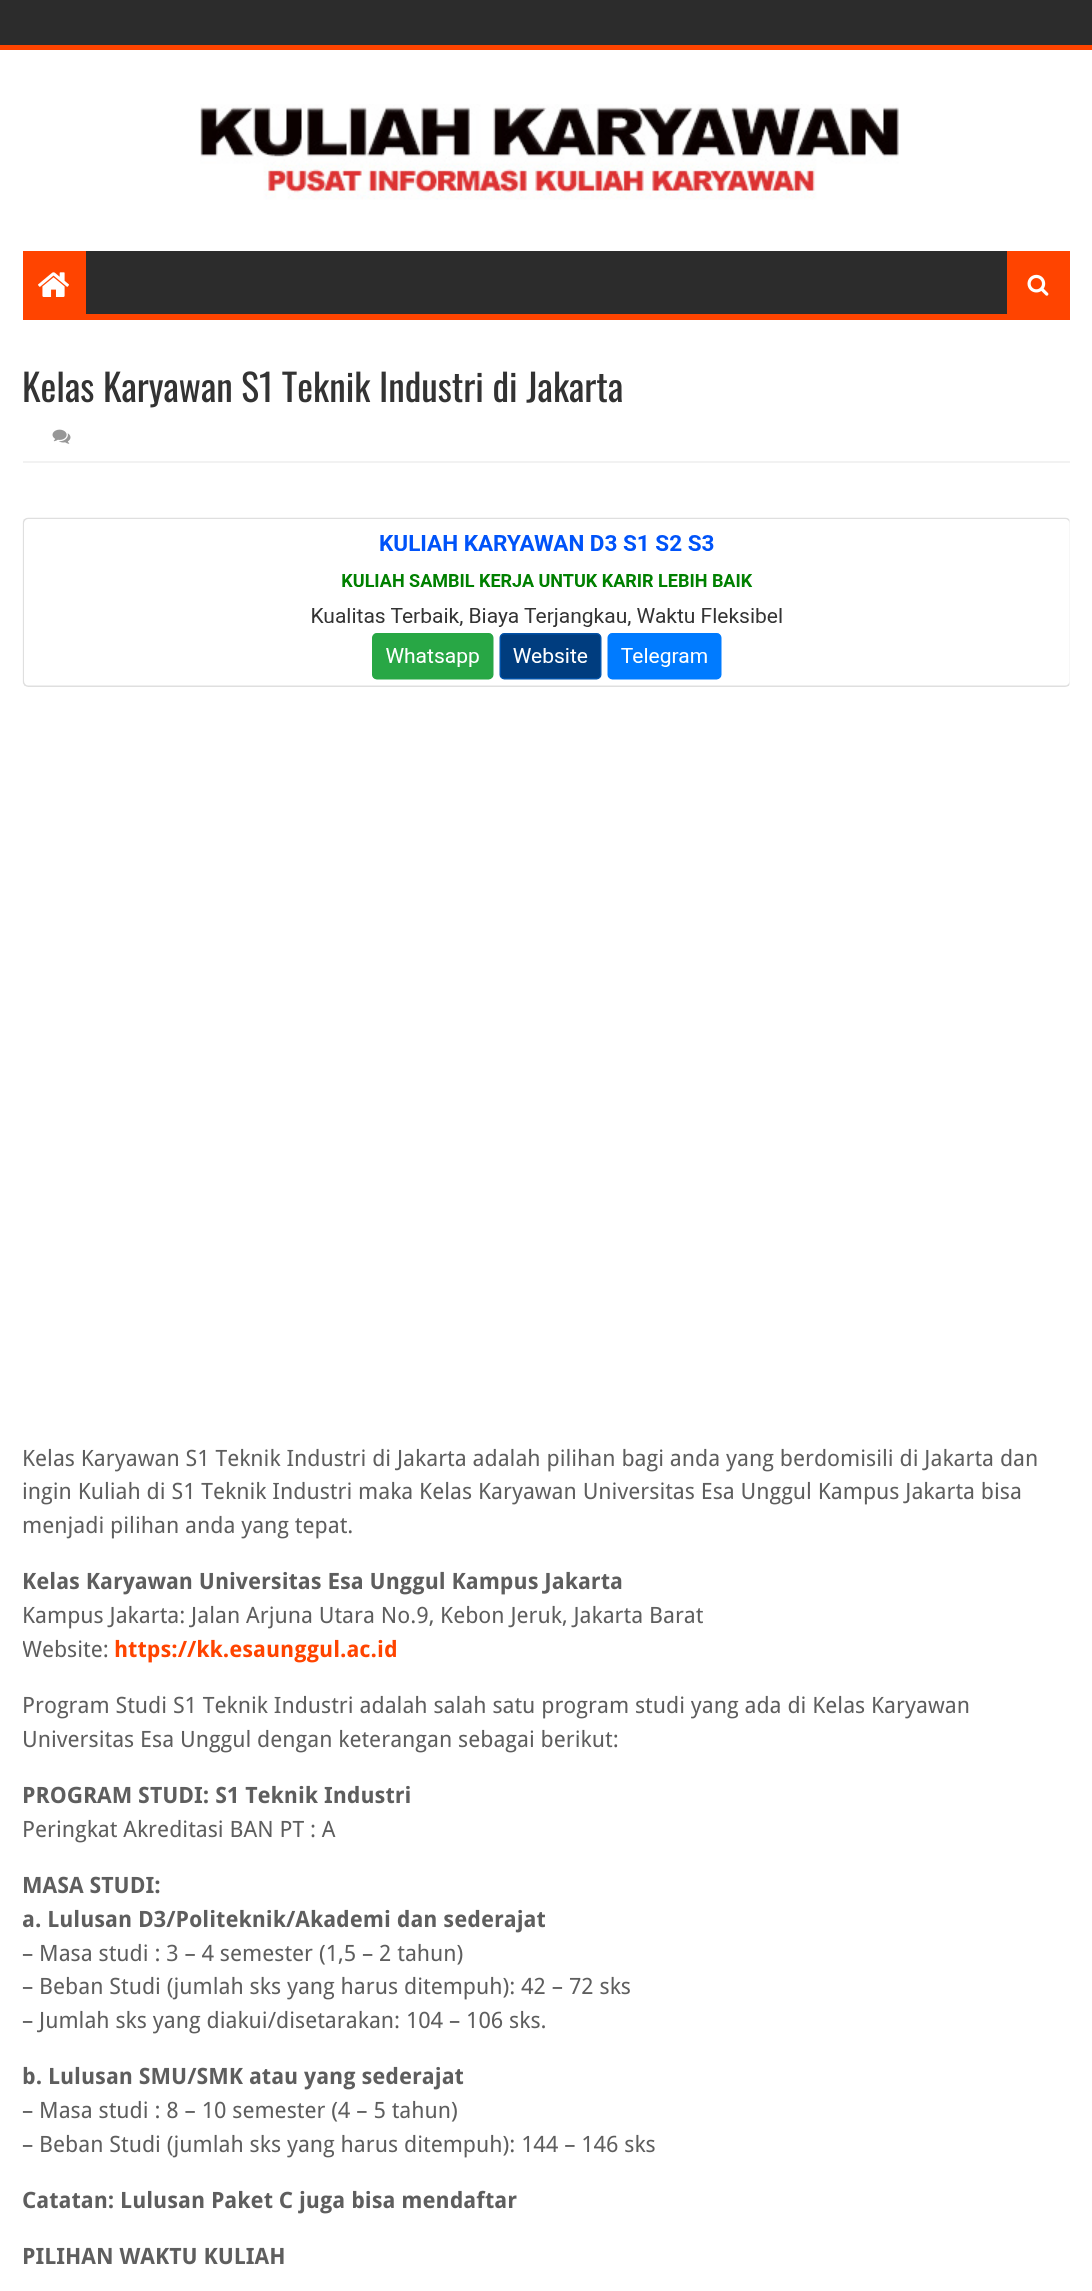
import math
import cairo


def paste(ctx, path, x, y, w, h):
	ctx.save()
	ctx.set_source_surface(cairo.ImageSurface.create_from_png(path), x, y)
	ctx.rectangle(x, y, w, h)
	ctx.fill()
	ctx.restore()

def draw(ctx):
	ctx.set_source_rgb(1, 1, 1)
	ctx.paint()
	ctx.set_source_rgb(0.173, 0.173, 0.173)
	ctx.rectangle(0, 0, 1092, 45)
	ctx.fill()
	ctx.set_source_rgb(1, 0.267, 0)
	ctx.rectangle(0, 45, 1092, 5)
	ctx.fill()
	paste(ctx, 'media/1.png', 200, 104, 699, 96)
	ctx.set_source_rgb(0.173, 0.173, 0.173)
	ctx.rectangle(86, 251, 921, 63)
	ctx.fill()
	ctx.set_source_rgb(1, 0.267, 0)
	ctx.rectangle(23, 314, 1047, 6)
	ctx.rectangle(23, 251, 63, 63)
	ctx.fill()
	paste(ctx, 'media/2.png', 38, 272, 31, 25)
	ctx.rectangle(1007, 251, 63, 63)
	ctx.fill()
	paste(ctx, 'media/3.png', 1027, 274, 22, 22)
	ctx.select_font_face('Oswald')
	ctx.set_font_size(37.5)
	ctx.set_source_rgb(0.2, 0.2, 0.2)
	ctx.move_to(22, 402)
	ctx.show_text('Kelas Karyawan S1 Teknik Industri di Jakarta')
	ctx.set_source_rgb(0.949, 0.949, 0.949)
	ctx.rectangle(23, 461, 1047, 2)
	ctx.fill()
	paste(ctx, 'media/4.png', 52, 429, 19, 15)
	paste(ctx, 'media/5.png', 22, 517, 1048, 170)
	ctx.select_font_face('Droid Sans')
	ctx.set_font_size(22.5)
	ctx.set_source_rgb(0.369, 0.369, 0.369)
	for x, y, s in [
		(22, 1466, 'Kelas Karyawan S1 Teknik Industri di Jakarta adalah pilihan bagi anda yang berdomisili di Jakarta dan'),
		(22, 1499, 'ingin Kuliah di S1 Teknik Industri maka Kelas Karyawan Universitas Esa Unggul Kampus Jakarta bisa'),
		(22, 1533, 'menjadi pilihan anda yang tepat.'),
	]:
		ctx.move_to(x, y)
		ctx.show_text(s)
	ctx.select_font_face('Droid Sans', cairo.FONT_SLANT_NORMAL, cairo.FONT_WEIGHT_BOLD)
	ctx.move_to(22, 1589)
	ctx.show_text('Kelas Karyawan Universitas Esa Unggul Kampus Jakarta')
	ctx.select_font_face('Droid Sans')
	ctx.move_to(22, 1623)
	ctx.show_text('Kampus Jakarta: Jalan Arjuna Utara No.9, Kebon Jeruk, Jakarta Barat')
	ctx.save()
	ctx.rectangle(23, 485, 1047, 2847)
	ctx.clip()
	ctx.move_to(22, 1657)
	ctx.show_text('Website:')
	ctx.restore()
	ctx.select_font_face('Droid Sans', cairo.FONT_SLANT_NORMAL, cairo.FONT_WEIGHT_BOLD)
	ctx.set_source_rgb(1, 0.267, 0)
	ctx.move_to(114, 1657)
	ctx.show_text('https://kk.esaunggul.ac.id')
	ctx.select_font_face('Droid Sans')
	ctx.set_source_rgb(0.369, 0.369, 0.369)
	ctx.move_to(22, 1713)
	ctx.show_text('Program Studi S1 Teknik Industri adalah salah satu program studi yang ada di Kelas Karyawan')
	ctx.move_to(22, 1747)
	ctx.show_text('Universitas Esa Unggul dengan keterangan sebagai berikut:')
	ctx.select_font_face('Droid Sans', cairo.FONT_SLANT_NORMAL, cairo.FONT_WEIGHT_BOLD)
	ctx.move_to(22, 1803)
	ctx.show_text('PROGRAM STUDI: S1 Teknik Industri')
	ctx.select_font_face('Droid Sans')
	ctx.move_to(22, 1837)
	ctx.show_text('Peringkat Akreditasi BAN PT : A')
	ctx.select_font_face('Droid Sans', cairo.FONT_SLANT_NORMAL, cairo.FONT_WEIGHT_BOLD)
	ctx.move_to(22, 1893)
	ctx.show_text('MASA STUDI:')
	ctx.save()
	ctx.rectangle(23, 485, 1047, 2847)
	ctx.clip()
	ctx.move_to(22, 1927)
	ctx.show_text('a. Lulusan D3/Politeknik/Akademi dan sederajat')
	ctx.restore()
	ctx.select_font_face('Droid Sans')
	for x, y, s in [
		(22, 1961, '– Masa studi : 3 – 4 semester (1,5 – 2 tahun)'),
		(22, 1994, '– Beban Studi (jumlah sks yang harus ditempuh): 42 – 72 sks'),
		(22, 2028, '– Jumlah sks yang diakui/disetarakan: 104 – 106 sks.'),
	]:
		ctx.move_to(x, y)
		ctx.show_text(s)
	ctx.select_font_face('Droid Sans', cairo.FONT_SLANT_NORMAL, cairo.FONT_WEIGHT_BOLD)
	ctx.move_to(22, 2084)
	ctx.show_text('b. Lulusan SMU/SMK atau yang sederajat')
	ctx.select_font_face('Droid Sans')
	ctx.move_to(22, 2118)
	ctx.show_text('– Masa studi : 8 – 10 semester (4 – 5 tahun)')
	ctx.move_to(22, 2152)
	ctx.show_text('– Beban Studi (jumlah sks yang harus ditempuh): 144 – 146 sks')
	ctx.select_font_face('Droid Sans', cairo.FONT_SLANT_NORMAL, cairo.FONT_WEIGHT_BOLD)
	ctx.move_to(22, 2208)
	ctx.show_text('Catatan: Lulusan Paket C juga bisa mendaftar')
	ctx.move_to(22, 2264)
	ctx.show_text('PILIHAN WAKTU KULIAH')


surface = cairo.ImageSurface(cairo.FORMAT_RGB24, 1092, 2291)
ctx = cairo.Context(surface)
options = cairo.FontOptions()
options.set_hint_metrics(cairo.HINT_METRICS_OFF)
options.set_hint_style(cairo.HINT_STYLE_NONE)
ctx.set_font_options(options)
ctx.set_miter_limit(4)
draw(ctx)
surface.write_to_png('image.png')
